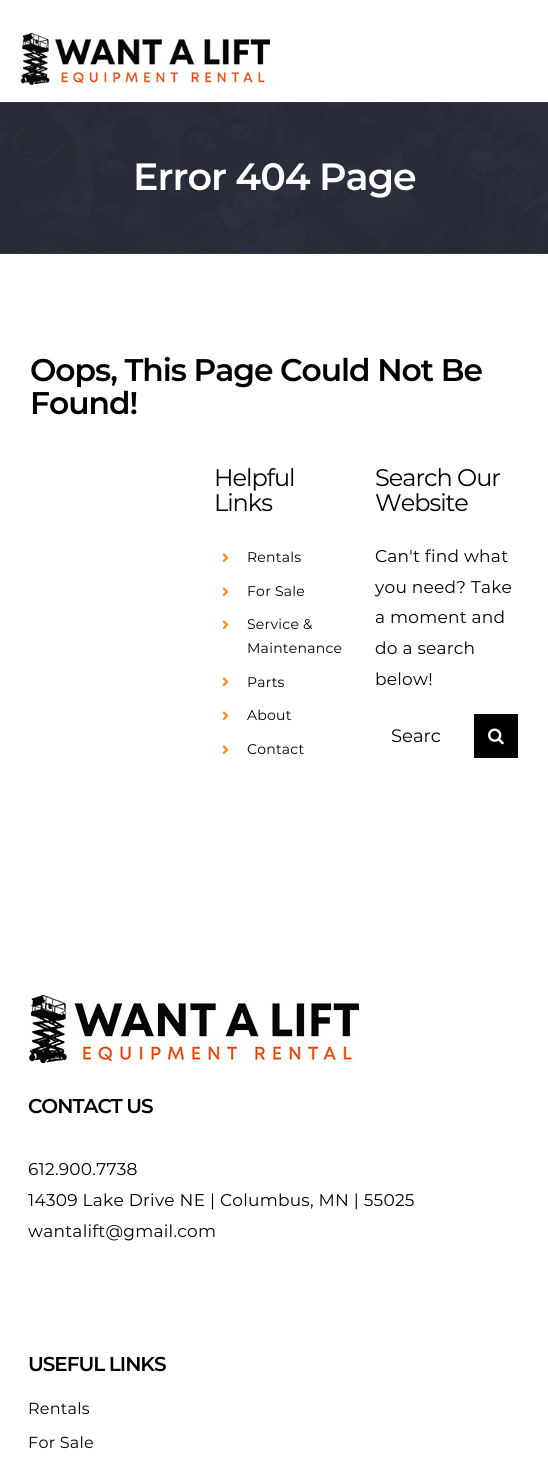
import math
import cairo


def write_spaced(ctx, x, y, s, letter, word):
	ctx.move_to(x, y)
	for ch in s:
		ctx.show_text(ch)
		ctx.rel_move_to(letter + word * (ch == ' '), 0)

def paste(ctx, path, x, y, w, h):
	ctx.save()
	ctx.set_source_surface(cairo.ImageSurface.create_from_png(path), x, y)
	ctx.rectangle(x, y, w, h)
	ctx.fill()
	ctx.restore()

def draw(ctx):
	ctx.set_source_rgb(1, 1, 1)
	ctx.paint()
	paste(ctx, 'media/1.png', 20, 32, 250, 54)
	paste(ctx, 'media/2.png', 0, 103, 548, 150)
	ctx.set_source_rgb(0.2, 0.212, 0.271)
	ctx.rectangle(0, 102, 548, 1)
	ctx.fill()
	ctx.rectangle(0, 253, 548, 1)
	ctx.fill()
	ctx.select_font_face('Montserrat SemiBold')
	ctx.set_font_size(38)
	ctx.set_source_rgb(1, 1, 1)
	write_spaced(ctx, 133, 190, 'Error 404 Page', -1, 0)
	ctx.set_font_size(31.3)
	ctx.set_source_rgb(0, 0, 0)
	write_spaced(ctx, 30, 381, 'Oops, This Page Could Not Be', -1, 0)
	write_spaced(ctx, 30, 414, 'Found!', -1, 0)
	ctx.select_font_face('Montserrat')
	ctx.set_font_size(24)
	write_spaced(ctx, 214, 486, 'Helpful', -1, 0)
	write_spaced(ctx, 214, 511, 'Links', -1, 0)
	paste(ctx, 'media/3.png', 222, 553, 7, 10)
	ctx.set_font_size(14)
	write_spaced(ctx, 247, 562, 'Rentals', 0.25, 0)
	paste(ctx, 'media/3.png', 222, 587, 7, 10)
	write_spaced(ctx, 247, 596, 'For Sale', 0.25, 0)
	paste(ctx, 'media/3.png', 222, 620, 7, 10)
	write_spaced(ctx, 247, 629, 'Service &', 0.25, 0)
	write_spaced(ctx, 247, 653, 'Maintenance', 0.25, 0)
	paste(ctx, 'media/3.png', 222, 677, 7, 10)
	write_spaced(ctx, 247, 687, 'Parts', 0.25, 0)
	paste(ctx, 'media/3.png', 222, 711, 7, 10)
	write_spaced(ctx, 247, 720, 'About', 0.25, 0)
	paste(ctx, 'media/3.png', 222, 745, 7, 10)
	write_spaced(ctx, 247, 754, 'Contact', 0.25, 0)
	ctx.set_font_size(24)
	write_spaced(ctx, 375, 486, 'Search Our', -1, 0)
	write_spaced(ctx, 375, 511, 'Website', -1, 0)
	ctx.set_font_size(17)
	for x, y, s in [
		(375, 562, 'Can\'t find what'),
		(375, 593, 'you need? Take'),
		(375, 623, 'a moment and'),
		(375, 654, 'do a search'),
		(375, 685, 'below!'),
	]:
		write_spaced(ctx, x, y, s, 0.25, 0)
	ctx.set_font_size(18)
	ctx.move_to(391, 742)
	ctx.show_text('Searc')
	ctx.rectangle(474, 714, 44, 44)
	ctx.fill()
	paste(ctx, 'media/4.png', 488, 728, 16, 17)
	paste(ctx, 'media/5.png', 28, 994, 331, 70)
	ctx.select_font_face('Montserrat SemiBold')
	ctx.set_font_size(20)
	write_spaced(ctx, 28, 1113, 'CONTACT US', -1, 0)
	ctx.select_font_face('Montserrat')
	ctx.set_font_size(17)
	for x, y, s in [
		(28, 1175, '612.900.7738'),
		(28, 1206, '14309 Lake Drive NE | Columbus, MN | 55025'),
		(28, 1237, 'wantalift@gmail.com'),
	]:
		write_spaced(ctx, x, y, s, 0.25, 0)
	ctx.select_font_face('Montserrat SemiBold')
	ctx.set_font_size(20)
	write_spaced(ctx, 28, 1371, 'USEFUL LINKS', -1, 0)
	ctx.select_font_face('Montserrat')
	ctx.set_font_size(16)
	write_spaced(ctx, 28, 1414, 'Rentals', 0.25, 0)
	write_spaced(ctx, 28, 1448, 'For Sale', 0.25, 0)


surface = cairo.ImageSurface(cairo.FORMAT_RGB24, 548, 1470)
ctx = cairo.Context(surface)
options = cairo.FontOptions()
options.set_hint_metrics(cairo.HINT_METRICS_OFF)
options.set_hint_style(cairo.HINT_STYLE_NONE)
ctx.set_font_options(options)
ctx.set_miter_limit(4)
draw(ctx)
surface.write_to_png('image.png')
